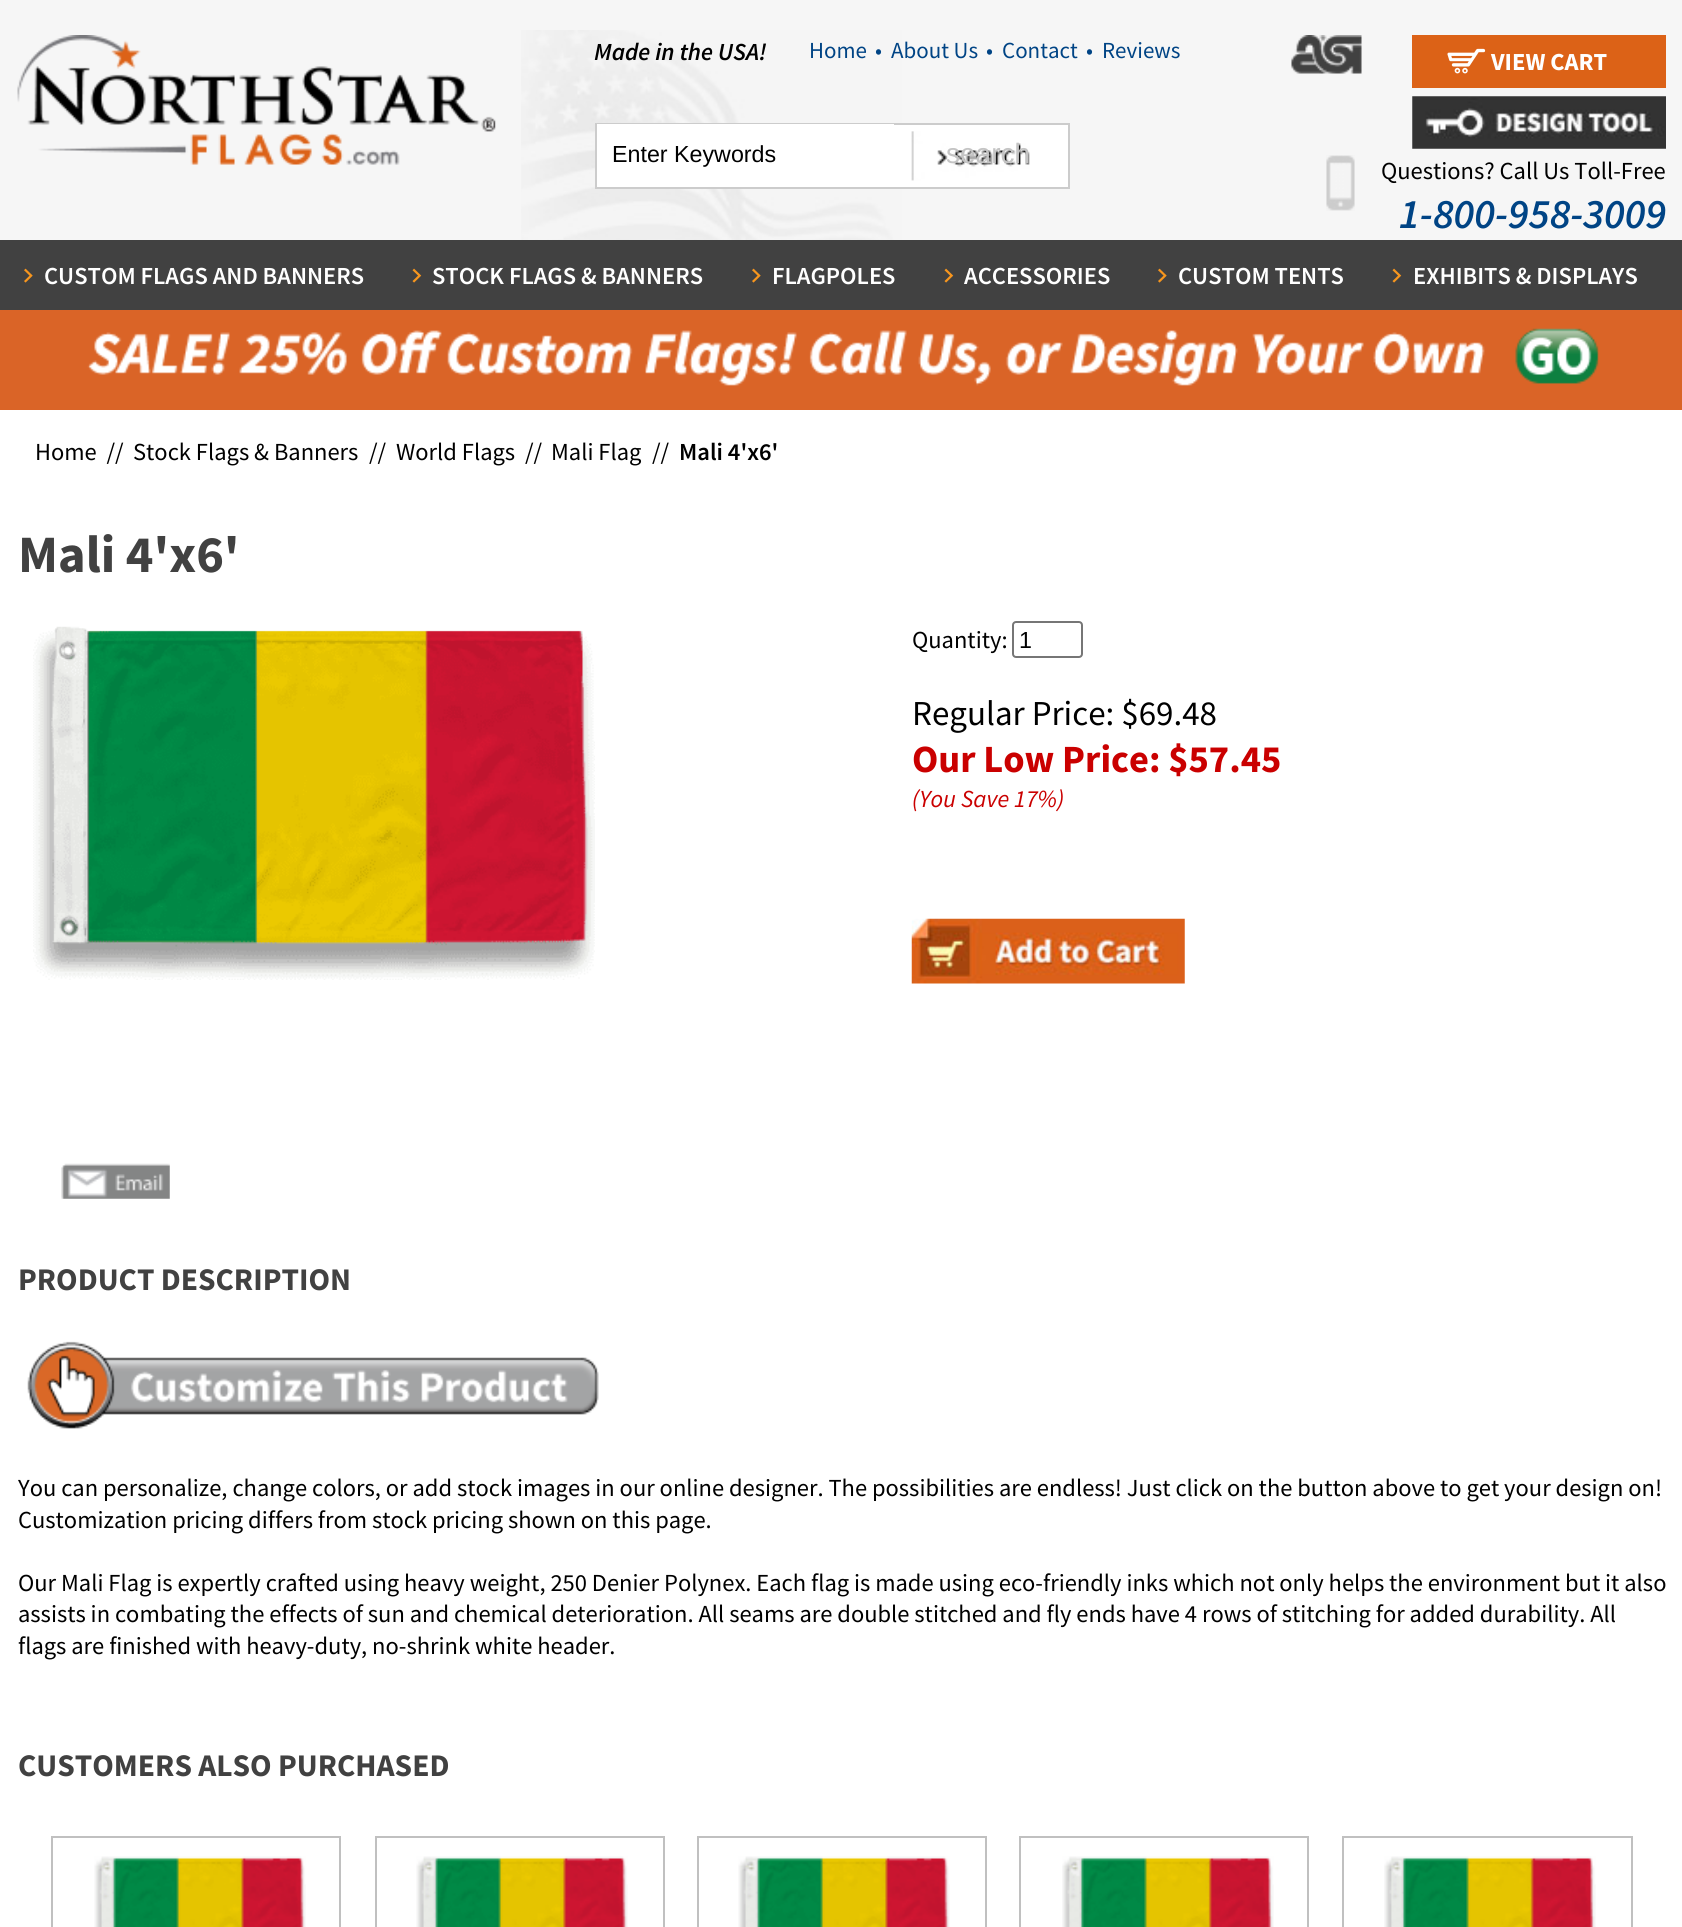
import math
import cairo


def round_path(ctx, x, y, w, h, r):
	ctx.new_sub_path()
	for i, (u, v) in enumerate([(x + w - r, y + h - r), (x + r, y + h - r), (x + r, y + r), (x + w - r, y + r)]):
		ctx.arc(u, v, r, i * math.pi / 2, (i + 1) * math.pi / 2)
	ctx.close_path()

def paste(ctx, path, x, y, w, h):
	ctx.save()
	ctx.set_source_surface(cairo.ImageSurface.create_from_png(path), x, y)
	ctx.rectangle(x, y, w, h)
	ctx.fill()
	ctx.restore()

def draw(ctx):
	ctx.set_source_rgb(1, 1, 1)
	ctx.paint()
	ctx.set_source_rgb(0.961, 0.961, 0.961)
	ctx.rectangle(0, 0, 1682, 240)
	ctx.fill()
	paste(ctx, 'media/1.png', 521, 30, 381, 210)
	paste(ctx, 'media/2.png', 17, 35, 479, 130)
	ctx.select_font_face('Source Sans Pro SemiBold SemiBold', cairo.FONT_SLANT_ITALIC)
	ctx.set_font_size(24.5)
	ctx.set_source_rgb(0, 0, 0)
	ctx.move_to(594, 60)
	ctx.show_text('Made in the USA!')
	ctx.select_font_face('Source Sans Pro')
	ctx.set_font_size(23)
	ctx.set_source_rgb(0, 0.267, 0.522)
	for x, y, s in [
		(809, 58, 'Home'),
		(875, 58, '•'),
		(891, 58, 'About Us'),
		(986, 58, '•'),
		(1002, 58, 'Contact'),
		(1086, 58, '•'),
		(1102, 58, 'Reviews'),
	]:
		ctx.move_to(x, y)
		ctx.show_text(s)
	paste(ctx, 'media/3.png', 1291, 35, 71, 39)
	ctx.set_source_rgb(0.863, 0.384, 0.09)
	ctx.rectangle(1412, 35, 254, 53)
	ctx.fill()
	paste(ctx, 'media/4.png', 1447, 48, 39, 26)
	ctx.select_font_face('Source Sans Pro', cairo.FONT_SLANT_NORMAL, cairo.FONT_WEIGHT_BOLD)
	ctx.set_font_size(24.5)
	ctx.set_source_rgb(1, 1, 1)
	ctx.move_to(1491, 70)
	ctx.show_text('VIEW CART')
	paste(ctx, 'media/5.png', 1412, 96, 254, 53)
	ctx.rectangle(597, 125, 471, 62)
	ctx.fill()
	ctx.set_source_rgb(0.8, 0.8, 0.8)
	ctx.rectangle(595, 123, 474, 2)
	ctx.rectangle(595, 187, 315, 2)
	ctx.rectangle(595, 123, 2, 66)
	ctx.fill()
	ctx.set_source_rgb(1, 1, 1)
	ctx.rectangle(597, 124, 297, 1)
	ctx.fill()
	ctx.select_font_face('Liberation Sans')
	ctx.set_font_size(23.25)
	ctx.set_source_rgb(0, 0, 0)
	ctx.move_to(612, 162)
	ctx.show_text('Enter Keywords')
	paste(ctx, 'media/6.png', 911, 131, 119, 50)
	ctx.set_source_rgb(0.8, 0.8, 0.8)
	ctx.rectangle(1068, 123, 2, 66)
	ctx.fill()
	ctx.rectangle(910, 187, 159, 2)
	ctx.fill()
	ctx.set_font_size(28)
	ctx.set_source_rgb(0.769, 0.769, 0.769)
	ctx.move_to(946, 163)
	ctx.show_text('search')
	paste(ctx, 'media/7.png', 1326, 155, 29, 56)
	ctx.select_font_face('Source Sans Pro')
	ctx.set_font_size(24.5)
	ctx.set_source_rgb(0, 0, 0)
	ctx.move_to(1381, 179)
	ctx.show_text('Questions? Call Us Toll-Free')
	ctx.select_font_face('Source Sans Pro SemiBold SemiBold', cairo.FONT_SLANT_ITALIC)
	ctx.set_font_size(42)
	ctx.set_source_rgb(0, 0.267, 0.522)
	ctx.move_to(1399, 228)
	ctx.show_text('1-800-958-3009')
	ctx.set_source_rgb(0.255, 0.255, 0.255)
	ctx.rectangle(0, 240, 1682, 70)
	ctx.fill()
	paste(ctx, 'media/8.png', 24, 268, 9, 15)
	ctx.select_font_face('Source Sans Pro SemiBold SemiBold')
	ctx.set_font_size(24.5)
	ctx.set_source_rgb(1, 1, 1)
	ctx.move_to(44, 284)
	ctx.show_text('CUSTOM FLAGS AND BANNERS')
	paste(ctx, 'media/9.png', 412, 268, 10, 15)
	ctx.move_to(432, 284)
	ctx.show_text('STOCK FLAGS & BANNERS')
	paste(ctx, 'media/8.png', 752, 268, 9, 15)
	ctx.move_to(772, 284)
	ctx.show_text('FLAGPOLES')
	paste(ctx, 'media/9.png', 944, 268, 10, 15)
	ctx.move_to(964, 284)
	ctx.show_text('ACCESSORIES')
	paste(ctx, 'media/8.png', 1158, 268, 9, 15)
	ctx.move_to(1178, 284)
	ctx.show_text('CUSTOM TENTS')
	paste(ctx, 'media/9.png', 1392, 268, 10, 15)
	ctx.move_to(1413, 284)
	ctx.show_text('EXHIBITS & DISPLAYS')
	ctx.set_source_rgb(0.855, 0.392, 0.153)
	ctx.rectangle(0, 310, 1682, 100)
	ctx.fill()
	paste(ctx, 'media/10.png', 87, 328, 1512, 58)
	ctx.select_font_face('Source Sans Pro')
	ctx.set_source_rgb(0, 0, 0)
	for x, y, s in [
		(35, 460, 'Home  //'),
		(133, 460, 'Stock Flags & Banners'),
		(369, 460, '//'),
		(396, 460, 'World Flags'),
		(525, 460, '//'),
		(551, 460, 'Mali Flag'),
		(652, 460, '//'),
	]:
		ctx.move_to(x, y)
		ctx.show_text(s)
	ctx.select_font_face('Source Sans Pro SemiBold SemiBold')
	ctx.move_to(679, 460)
	ctx.show_text('Mali 4\'x6\'')
	ctx.select_font_face('Source Sans Pro', cairo.FONT_SLANT_NORMAL, cairo.FONT_WEIGHT_BOLD)
	ctx.set_font_size(52.5)
	ctx.set_source_rgb(0.255, 0.255, 0.255)
	ctx.move_to(18, 572)
	ctx.show_text('Mali 4\'x6\'')
	paste(ctx, 'media/11.png', 33, 626, 562, 354)
	paste(ctx, 'media/12.png', 61, 1163, 109, 36)
	ctx.select_font_face('Source Sans Pro')
	ctx.set_font_size(24.5)
	ctx.set_source_rgb(0, 0, 0)
	ctx.move_to(912, 648)
	ctx.show_text('Quantity:')
	round_path(ctx, 1013, 622, 69, 35, 3)
	ctx.set_source_rgb(0.463, 0.463, 0.463)
	ctx.stroke()
	ctx.select_font_face('Liberation Sans')
	ctx.set_font_size(23.25)
	ctx.set_source_rgb(0, 0, 0)
	ctx.move_to(1019, 648)
	ctx.show_text('1')
	ctx.select_font_face('Source Sans Pro')
	ctx.set_font_size(35)
	ctx.move_to(912, 725)
	ctx.show_text('Regular Price: $69.48')
	ctx.select_font_face('Source Sans Pro', cairo.FONT_SLANT_NORMAL, cairo.FONT_WEIGHT_BOLD)
	ctx.set_font_size(38.5)
	ctx.set_source_rgb(0.792, 0, 0)
	ctx.move_to(912, 772)
	ctx.show_text('Our Low Price: $57.45')
	ctx.select_font_face('Source Sans Pro', cairo.FONT_SLANT_ITALIC)
	ctx.set_font_size(24.5)
	ctx.move_to(912, 807)
	ctx.show_text('(You Save 17%)')
	paste(ctx, 'media/13.png', 911, 918, 274, 66)
	ctx.select_font_face('Source Sans Pro', cairo.FONT_SLANT_NORMAL, cairo.FONT_WEIGHT_BOLD)
	ctx.set_font_size(31.5)
	ctx.set_source_rgb(0.255, 0.255, 0.255)
	ctx.move_to(18, 1290)
	ctx.show_text('PRODUCT DESCRIPTION')
	paste(ctx, 'media/14.png', 27, 1341, 572, 88)
	ctx.select_font_face('Source Sans Pro')
	ctx.set_font_size(24.5)
	ctx.set_source_rgb(0, 0, 0)
	for x, y, s in [
		(18, 1496, 'You can personalize, change colors, or add stock images in our online designer. The possibilities are endless! Just click on the button above to get your design on!'),
		(18, 1528, 'Customization pricing differs from stock pricing shown on this page.'),
		(18, 1591, 'Our Mali Flag is expertly crafted using heavy weight, 250 Denier Polynex. Each flag is made using eco-friendly inks which not only helps the environment but it also'),
		(18, 1622, 'assists in combating the effects of sun and chemical deterioration. All seams are double stitched and fly ends have 4 rows of stitching for added durability. All'),
		(18, 1654, 'flags are finished with heavy-duty, no-shrink white header.'),
	]:
		ctx.move_to(x, y)
		ctx.show_text(s)
	ctx.select_font_face('Source Sans Pro', cairo.FONT_SLANT_NORMAL, cairo.FONT_WEIGHT_BOLD)
	ctx.set_font_size(31.5)
	ctx.set_source_rgb(0.255, 0.255, 0.255)
	ctx.move_to(18, 1776)
	ctx.show_text('CUSTOMERS ALSO PURCHASED')
	ctx.rectangle(52, 1837, 288, 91)
	ctx.set_source_rgb(0.753, 0.753, 0.753)
	ctx.stroke()
	paste(ctx, 'media/15.png', 94, 1856, 212, 71)
	ctx.rectangle(376, 1837, 288, 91)
	ctx.stroke()
	paste(ctx, 'media/16.png', 416, 1856, 212, 71)
	ctx.rectangle(698, 1837, 288, 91)
	ctx.stroke()
	paste(ctx, 'media/17.png', 738, 1856, 212, 71)
	ctx.rectangle(1020, 1837, 288, 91)
	ctx.stroke()
	paste(ctx, 'media/18.png', 1062, 1856, 212, 71)
	ctx.rectangle(1343, 1837, 289, 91)
	ctx.stroke()
	paste(ctx, 'media/19.png', 1384, 1856, 212, 71)


surface = cairo.ImageSurface(cairo.FORMAT_RGB24, 1682, 1927)
ctx = cairo.Context(surface)
options = cairo.FontOptions()
options.set_hint_metrics(cairo.HINT_METRICS_OFF)
options.set_hint_style(cairo.HINT_STYLE_NONE)
ctx.set_font_options(options)
ctx.set_miter_limit(4)
draw(ctx)
surface.write_to_png('image.png')
